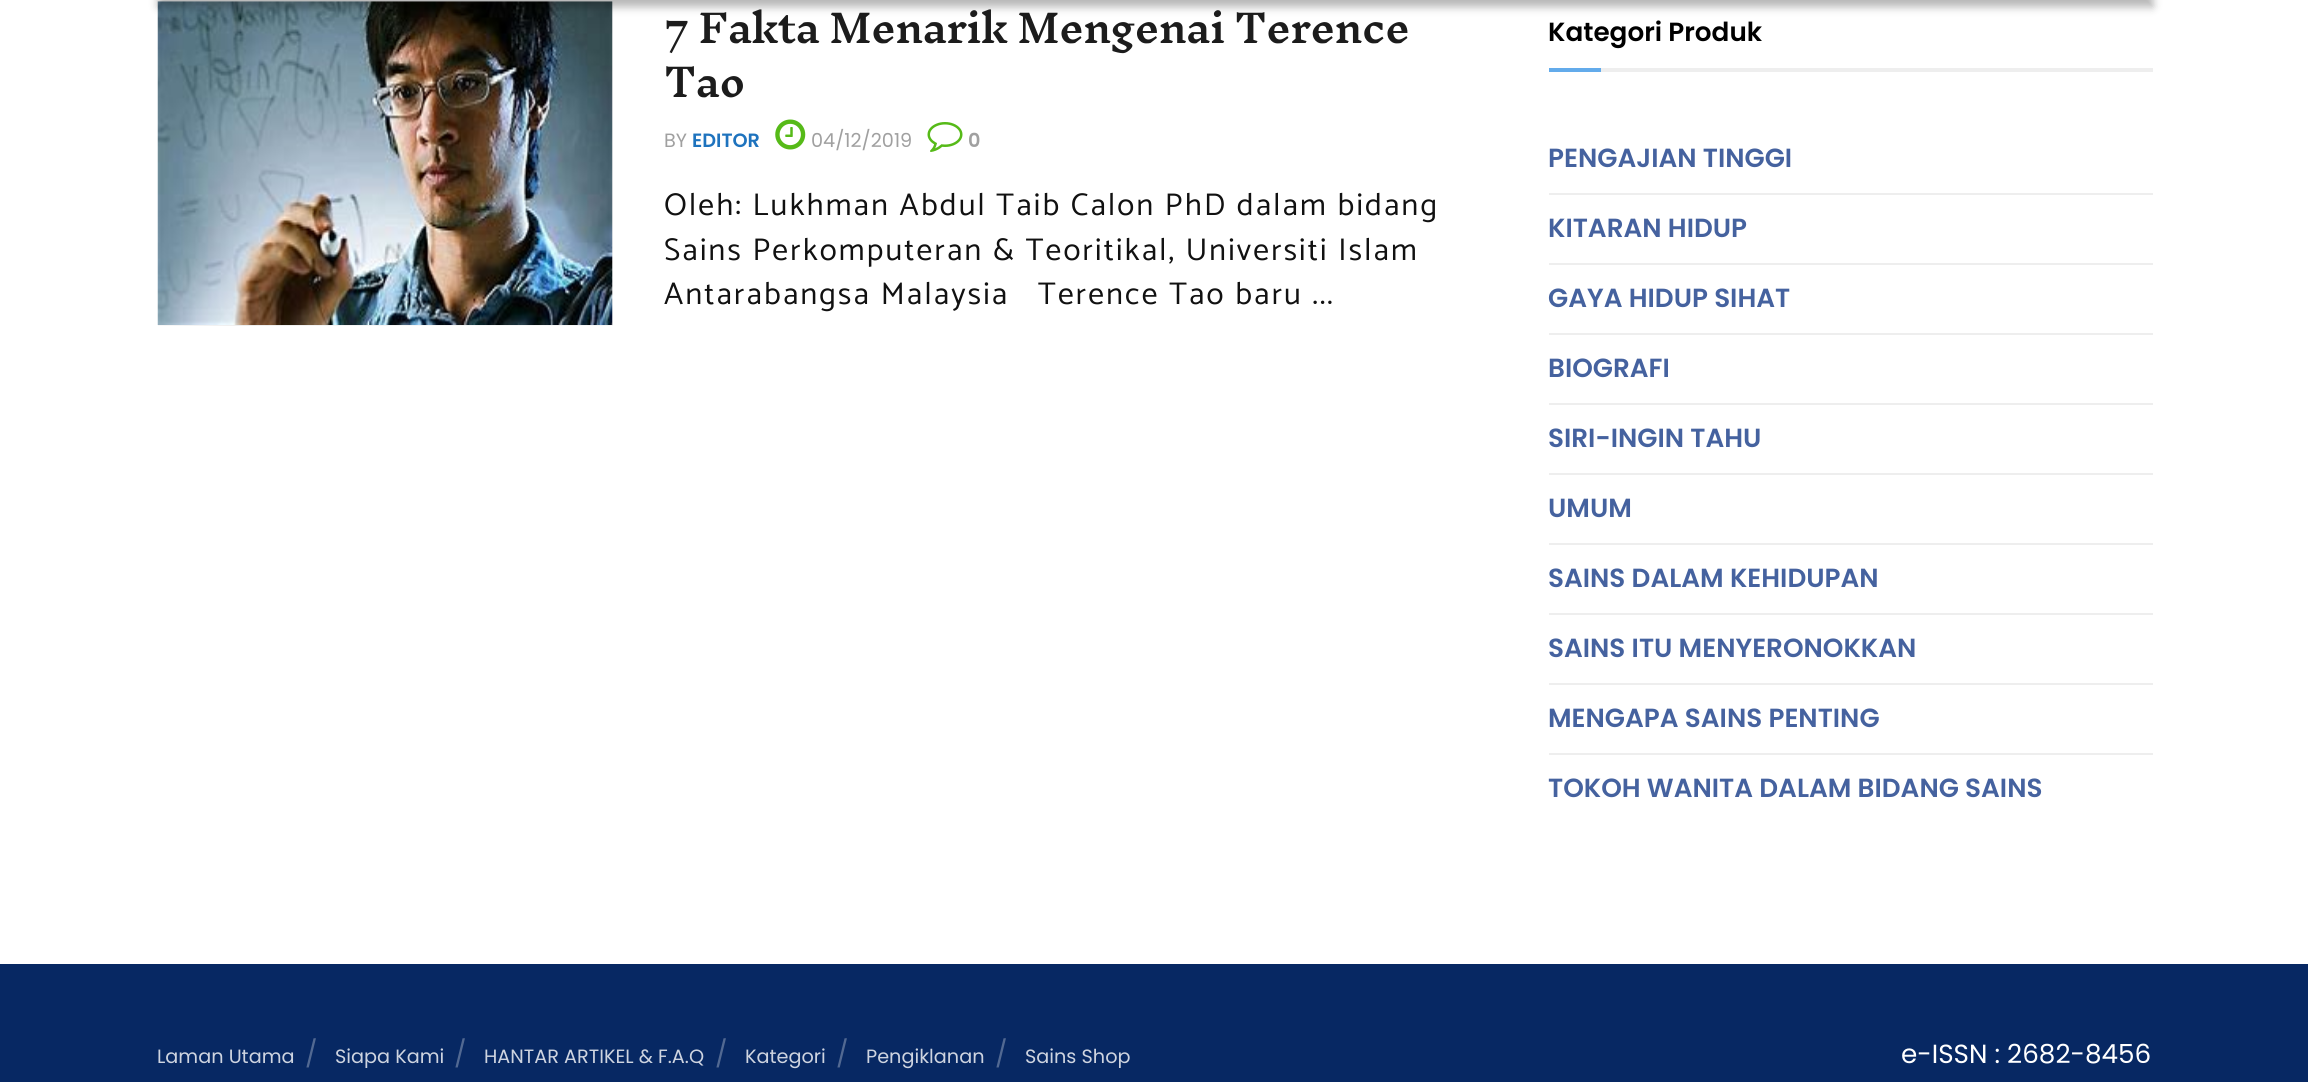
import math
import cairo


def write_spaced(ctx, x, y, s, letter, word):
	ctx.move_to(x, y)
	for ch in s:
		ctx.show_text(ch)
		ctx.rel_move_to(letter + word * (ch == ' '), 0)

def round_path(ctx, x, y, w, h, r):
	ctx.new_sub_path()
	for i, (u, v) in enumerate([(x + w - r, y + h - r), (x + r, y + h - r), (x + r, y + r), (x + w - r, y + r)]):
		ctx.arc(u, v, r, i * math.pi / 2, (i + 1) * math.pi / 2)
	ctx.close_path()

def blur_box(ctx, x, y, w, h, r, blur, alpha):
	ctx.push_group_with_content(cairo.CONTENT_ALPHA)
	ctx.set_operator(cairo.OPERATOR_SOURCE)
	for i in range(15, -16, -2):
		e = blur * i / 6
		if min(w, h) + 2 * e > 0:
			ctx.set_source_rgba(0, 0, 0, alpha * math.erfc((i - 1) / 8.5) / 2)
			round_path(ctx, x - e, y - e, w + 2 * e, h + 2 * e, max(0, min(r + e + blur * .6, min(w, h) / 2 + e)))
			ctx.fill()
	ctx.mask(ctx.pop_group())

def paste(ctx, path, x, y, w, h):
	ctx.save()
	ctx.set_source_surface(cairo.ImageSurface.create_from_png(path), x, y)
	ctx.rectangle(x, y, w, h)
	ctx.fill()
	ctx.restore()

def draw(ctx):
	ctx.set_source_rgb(1, 1, 1)
	ctx.paint()
	gradient = cairo.LinearGradient(158, 164, 613, 164)
	gradient.add_color_stop_rgba(0, 0.969, 0.969, 0.969, 1)
	gradient.add_color_stop_rgba(0.2, 0.933, 0.933, 0.933, 1)
	gradient.add_color_stop_rgba(0.4, 0.961, 0.961, 0.961, 1)
	gradient.add_color_stop_rgba(1, 0.969, 0.969, 0.969, 1)
	ctx.set_source(gradient)
	ctx.rectangle(158, 2, 455, 324)
	ctx.fill()
	paste(ctx, 'media/1.png', 157, 1, 456, 324)
	ctx.set_source_rgb(0, 0, 0)
	blur_box(ctx, 158, -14, 1995, 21, 0, 4.5, 0.29)
	ctx.select_font_face('Inknut Antiqua SemiBold')
	ctx.set_font_size(38.5)
	ctx.set_source_rgb(0.11, 0.11, 0.11)
	write_spaced(ctx, 664, 43, '7 Fakta Menarik Mengenai Terence', -0.75, 0)
	write_spaced(ctx, 664, 97, 'Tao', -0.75, 0)
	ctx.select_font_face('Poppins')
	ctx.set_font_size(19.25)
	ctx.set_source_rgb(0.627, 0.627, 0.627)
	ctx.move_to(664, 147)
	ctx.show_text('BY')
	ctx.select_font_face('Poppins SemiBold')
	ctx.set_source_rgb(0.118, 0.451, 0.745)
	ctx.move_to(692, 147)
	ctx.show_text('EDITOR')
	paste(ctx, 'media/2.png', 775, 119, 31, 31)
	ctx.select_font_face('Poppins')
	ctx.set_source_rgb(0.627, 0.627, 0.627)
	ctx.move_to(811, 147)
	ctx.show_text('04/12/2019')
	paste(ctx, 'media/3.png', 927, 122, 36, 30)
	ctx.select_font_face('Poppins SemiBold')
	ctx.move_to(968, 147)
	ctx.show_text('0')
	ctx.select_font_face('Catamaran Thin')
	ctx.set_font_size(31.5)
	ctx.set_source_rgb(0.067, 0.067, 0.067)
	for x, y, s in [
		(664, 215, 'Oleh: Lukhman Abdul Taib Calon PhD dalam bidang'),
		(664, 260, 'Sains Perkomputeran & Teoritikal, Universiti Islam'),
		(664, 304, 'Antarabangsa Malaysia   Terence Tao baru ...'),
	]:
		write_spaced(ctx, x, y, s, 2.2, 0)
	ctx.set_source_rgb(0.933, 0.933, 0.933)
	ctx.rectangle(1601, 68, 552, 4)
	ctx.fill()
	ctx.select_font_face('Poppins SemiBold')
	ctx.set_font_size(26.25)
	ctx.set_source_rgb(0, 0, 0)
	ctx.move_to(1548, 41)
	ctx.show_text('Kategori Produk')
	ctx.set_source_rgb(0.388, 0.671, 0.918)
	ctx.rectangle(1549, 68, 52, 4)
	ctx.fill()
	ctx.set_source_rgb(0.271, 0.384, 0.624)
	ctx.move_to(1548, 167)
	ctx.show_text('PENGAJIAN TINGGI')
	ctx.set_source_rgb(0.933, 0.933, 0.933)
	ctx.rectangle(1549, 193, 604, 2)
	ctx.fill()
	ctx.set_source_rgb(0.271, 0.384, 0.624)
	ctx.move_to(1548, 237)
	ctx.show_text('KITARAN HIDUP')
	ctx.set_source_rgb(0.933, 0.933, 0.933)
	ctx.rectangle(1549, 263, 604, 2)
	ctx.fill()
	ctx.set_source_rgb(0.271, 0.384, 0.624)
	ctx.move_to(1548, 307)
	ctx.show_text('GAYA HIDUP SIHAT')
	ctx.set_source_rgb(0.933, 0.933, 0.933)
	ctx.rectangle(1549, 333, 604, 2)
	ctx.fill()
	ctx.set_source_rgb(0.271, 0.384, 0.624)
	ctx.move_to(1548, 377)
	ctx.show_text('BIOGRAFI')
	ctx.set_source_rgb(0.933, 0.933, 0.933)
	ctx.rectangle(1549, 403, 604, 2)
	ctx.fill()
	ctx.set_source_rgb(0.271, 0.384, 0.624)
	ctx.move_to(1548, 447)
	ctx.show_text('SIRI-INGIN TAHU')
	ctx.set_source_rgb(0.933, 0.933, 0.933)
	ctx.rectangle(1549, 473, 604, 2)
	ctx.fill()
	ctx.set_source_rgb(0.271, 0.384, 0.624)
	ctx.move_to(1548, 517)
	ctx.show_text('UMUM')
	ctx.set_source_rgb(0.933, 0.933, 0.933)
	ctx.rectangle(1549, 543, 604, 2)
	ctx.fill()
	ctx.set_source_rgb(0.271, 0.384, 0.624)
	ctx.move_to(1548, 587)
	ctx.show_text('SAINS DALAM KEHIDUPAN')
	ctx.set_source_rgb(0.933, 0.933, 0.933)
	ctx.rectangle(1549, 613, 604, 2)
	ctx.fill()
	ctx.set_source_rgb(0.271, 0.384, 0.624)
	ctx.move_to(1548, 657)
	ctx.show_text('SAINS ITU MENYERONOKKAN')
	ctx.set_source_rgb(0.933, 0.933, 0.933)
	ctx.rectangle(1549, 683, 604, 2)
	ctx.fill()
	ctx.set_source_rgb(0.271, 0.384, 0.624)
	ctx.move_to(1548, 727)
	ctx.show_text('MENGAPA SAINS PENTING')
	ctx.set_source_rgb(0.933, 0.933, 0.933)
	ctx.rectangle(1549, 753, 604, 2)
	ctx.fill()
	ctx.set_source_rgb(0.271, 0.384, 0.624)
	ctx.move_to(1548, 797)
	ctx.show_text('TOKOH WANITA DALAM BIDANG SAINS')
	ctx.set_source_rgb(0.031, 0.157, 0.388)
	ctx.rectangle(0, 964, 2308, 118)
	ctx.fill()
	ctx.select_font_face('Poppins')
	ctx.set_font_size(19.25)
	ctx.set_source_rgb(0.808, 0.831, 0.878)
	ctx.move_to(157, 1063)
	ctx.show_text('Laman Utama')
	ctx.set_font_size(26.25)
	ctx.set_source_rgb(0.322, 0.412, 0.573)
	ctx.move_to(305, 1063)
	ctx.show_text('/')
	ctx.set_font_size(19.25)
	ctx.set_source_rgb(0.808, 0.831, 0.878)
	ctx.move_to(335, 1063)
	ctx.show_text('Siapa Kami')
	ctx.set_font_size(26.25)
	ctx.set_source_rgb(0.322, 0.412, 0.573)
	ctx.move_to(454, 1063)
	ctx.show_text('/')
	ctx.set_font_size(19.25)
	ctx.set_source_rgb(0.808, 0.831, 0.878)
	ctx.move_to(484, 1063)
	ctx.show_text('HANTAR ARTIKEL & F.A.Q')
	ctx.set_font_size(26.25)
	ctx.set_source_rgb(0.322, 0.412, 0.573)
	ctx.move_to(715, 1063)
	ctx.show_text('/')
	ctx.set_font_size(19.25)
	ctx.set_source_rgb(0.808, 0.831, 0.878)
	ctx.move_to(745, 1063)
	ctx.show_text('Kategori')
	ctx.set_font_size(26.25)
	ctx.set_source_rgb(0.322, 0.412, 0.573)
	ctx.move_to(836, 1063)
	ctx.show_text('/')
	ctx.set_font_size(19.25)
	ctx.set_source_rgb(0.808, 0.831, 0.878)
	ctx.move_to(866, 1063)
	ctx.show_text('Pengiklanan')
	ctx.set_font_size(26.25)
	ctx.set_source_rgb(0.322, 0.412, 0.573)
	ctx.move_to(995, 1063)
	ctx.show_text('/')
	ctx.set_font_size(19.25)
	ctx.set_source_rgb(0.808, 0.831, 0.878)
	ctx.move_to(1025, 1063)
	ctx.show_text('Sains Shop')
	ctx.set_font_size(26.25)
	ctx.set_source_rgb(1, 1, 1)
	ctx.move_to(1901, 1063)
	ctx.show_text('e-ISSN : 2682-8456')


surface = cairo.ImageSurface(cairo.FORMAT_RGB24, 2308, 1082)
ctx = cairo.Context(surface)
options = cairo.FontOptions()
options.set_hint_metrics(cairo.HINT_METRICS_OFF)
options.set_hint_style(cairo.HINT_STYLE_NONE)
ctx.set_font_options(options)
ctx.set_miter_limit(4)
draw(ctx)
surface.write_to_png('image.png')
